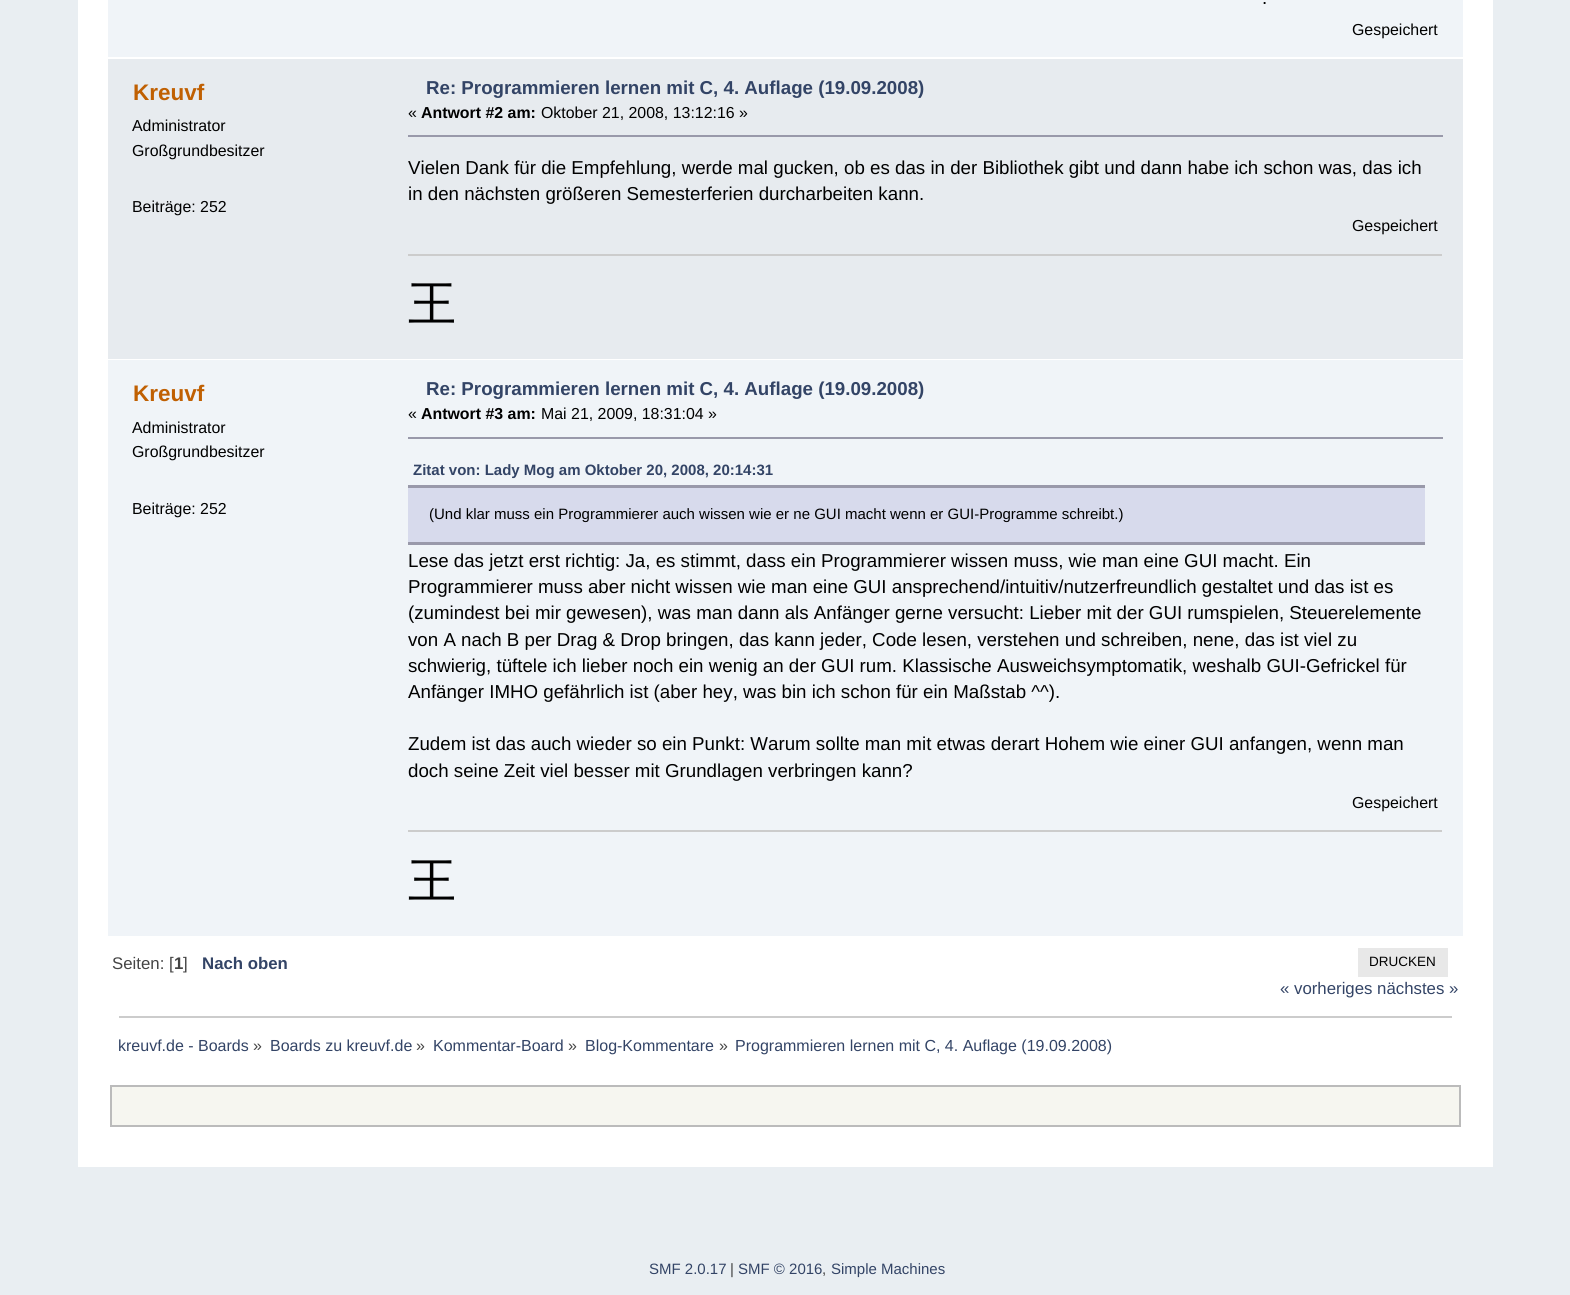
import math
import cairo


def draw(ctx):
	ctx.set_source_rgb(0.914, 0.933, 0.949)
	ctx.paint()
	ctx.set_source_rgb(1, 1, 1)
	ctx.rectangle(78, 0, 1415, 1167)
	ctx.fill()
	ctx.set_source_rgb(0.941, 0.957, 0.969)
	ctx.rectangle(108, 0, 1355, 57)
	ctx.fill()
	ctx.select_font_face('Liberation Sans')
	ctx.set_font_size(18.72)
	ctx.set_source_rgb(0, 0, 0)
	ctx.move_to(1262, 4)
	ctx.show_text('.')
	ctx.set_font_size(15.9)
	ctx.move_to(1352, 35)
	ctx.show_text('Gespeichert')
	ctx.set_source_rgb(0.906, 0.918, 0.937)
	ctx.rectangle(108, 59, 1355, 300)
	ctx.fill()
	ctx.select_font_face('Liberation Sans', cairo.FONT_SLANT_NORMAL, cairo.FONT_WEIGHT_BOLD)
	ctx.set_font_size(22.5)
	ctx.set_source_rgb(0.753, 0.376, 0.008)
	ctx.move_to(133, 100)
	ctx.show_text('Kreuvf')
	ctx.select_font_face('Liberation Sans')
	ctx.set_font_size(15.9)
	ctx.set_source_rgb(0, 0, 0)
	for x, y, s in [
		(132, 131, 'Administrator'),
		(132, 156, 'Großgrundbesitzer'),
		(132, 212, 'Beiträge: 252'),
	]:
		ctx.move_to(x, y)
		ctx.show_text(s)
	ctx.select_font_face('Liberation Sans', cairo.FONT_SLANT_NORMAL, cairo.FONT_WEIGHT_BOLD)
	ctx.set_font_size(18.72)
	ctx.set_source_rgb(0.2, 0.267, 0.4)
	ctx.move_to(426, 94)
	ctx.show_text('Re: Programmieren lernen mit C, 4. Auflage (19.09.2008)')
	ctx.select_font_face('Liberation Sans')
	ctx.set_font_size(15.9)
	ctx.set_source_rgb(0, 0, 0)
	ctx.move_to(408, 118)
	ctx.show_text('«')
	ctx.select_font_face('Liberation Sans', cairo.FONT_SLANT_NORMAL, cairo.FONT_WEIGHT_BOLD)
	ctx.move_to(421, 118)
	ctx.show_text('Antwort #2 am:')
	ctx.select_font_face('Liberation Sans')
	ctx.move_to(541, 118)
	ctx.show_text('Oktober 21, 2008, 13:12:16 »')
	ctx.set_source_rgb(0.6, 0.6, 0.667)
	ctx.rectangle(408, 135, 1035, 2)
	ctx.fill()
	ctx.set_font_size(18.72)
	ctx.set_source_rgb(0, 0, 0)
	ctx.move_to(408, 174)
	ctx.show_text('Vielen Dank für die Empfehlung, werde mal gucken, ob es das in der Bibliothek gibt und dann habe ich schon was, das ich')
	ctx.move_to(408, 200)
	ctx.show_text('in den nächsten größeren Semesterferien durcharbeiten kann.')
	ctx.set_font_size(15.9)
	ctx.move_to(1352, 231)
	ctx.show_text('Gespeichert')
	ctx.set_source_rgb(0.8, 0.8, 0.8)
	ctx.rectangle(408, 254, 1034, 2)
	ctx.fill()
	ctx.select_font_face('WenQuanYi Zen Hei Medium')
	ctx.set_font_size(48)
	ctx.set_source_rgb(0, 0, 0)
	ctx.move_to(408, 320)
	ctx.show_text('王')
	ctx.set_source_rgb(0.941, 0.957, 0.969)
	ctx.rectangle(108, 360, 1355, 576)
	ctx.fill()
	ctx.select_font_face('Liberation Sans', cairo.FONT_SLANT_NORMAL, cairo.FONT_WEIGHT_BOLD)
	ctx.set_font_size(22.5)
	ctx.set_source_rgb(0.753, 0.376, 0.008)
	ctx.move_to(133, 401)
	ctx.show_text('Kreuvf')
	ctx.select_font_face('Liberation Sans')
	ctx.set_font_size(15.9)
	ctx.set_source_rgb(0, 0, 0)
	for x, y, s in [
		(132, 433, 'Administrator'),
		(132, 457, 'Großgrundbesitzer'),
		(132, 514, 'Beiträge: 252'),
	]:
		ctx.move_to(x, y)
		ctx.show_text(s)
	ctx.select_font_face('Liberation Sans', cairo.FONT_SLANT_NORMAL, cairo.FONT_WEIGHT_BOLD)
	ctx.set_font_size(18.72)
	ctx.set_source_rgb(0.2, 0.267, 0.4)
	ctx.move_to(426, 395)
	ctx.show_text('Re: Programmieren lernen mit C, 4. Auflage (19.09.2008)')
	ctx.select_font_face('Liberation Sans')
	ctx.set_font_size(15.9)
	ctx.set_source_rgb(0, 0, 0)
	ctx.move_to(408, 419)
	ctx.show_text('«')
	ctx.select_font_face('Liberation Sans', cairo.FONT_SLANT_NORMAL, cairo.FONT_WEIGHT_BOLD)
	ctx.move_to(421, 419)
	ctx.show_text('Antwort #3 am:')
	ctx.select_font_face('Liberation Sans')
	ctx.move_to(541, 419)
	ctx.show_text('Mai 21, 2009, 18:31:04 »')
	ctx.set_source_rgb(0.6, 0.6, 0.667)
	ctx.rectangle(408, 437, 1035, 2)
	ctx.fill()
	ctx.select_font_face('Liberation Sans', cairo.FONT_SLANT_NORMAL, cairo.FONT_WEIGHT_BOLD)
	ctx.set_font_size(15)
	ctx.set_source_rgb(0.2, 0.267, 0.4)
	ctx.move_to(413, 475)
	ctx.show_text('Zitat von: Lady Mog am Oktober 20, 2008, 20:14:31')
	ctx.set_source_rgb(0.843, 0.855, 0.925)
	ctx.rectangle(408, 488, 1017, 54)
	ctx.fill()
	ctx.set_source_rgb(0.6, 0.6, 0.667)
	ctx.rectangle(408, 485, 1017, 3)
	ctx.rectangle(408, 542, 1017, 3)
	ctx.fill()
	ctx.select_font_face('Liberation Sans')
	ctx.set_source_rgb(0, 0, 0)
	ctx.move_to(429, 519)
	ctx.show_text('(Und klar muss ein Programmierer auch wissen wie er ne GUI macht wenn er GUI-Programme schreibt.)')
	ctx.set_font_size(18.72)
	for x, y, s in [
		(408, 567, 'Lese das jetzt erst richtig: Ja, es stimmt, dass ein Programmierer wissen muss, wie man eine GUI macht. Ein'),
		(408, 593, 'Programmierer muss aber nicht wissen wie man eine GUI ansprechend/intuitiv/nutzerfreundlich gestaltet und das ist es'),
		(408, 619, '(zumindest bei mir gewesen), was man dann als Anfänger gerne versucht: Lieber mit der GUI rumspielen, Steuerelemente'),
		(408, 646, 'von A nach B per Drag & Drop bringen, das kann jeder, Code lesen, verstehen und schreiben, nene, das ist viel zu'),
		(408, 672, 'schwierig, tüftele ich lieber noch ein wenig an der GUI rum. Klassische Ausweichsymptomatik, weshalb GUI-Gefrickel für'),
		(408, 698, 'Anfänger IMHO gefährlich ist (aber hey, was bin ich schon für ein Maßstab ^^).'),
		(408, 750, 'Zudem ist das auch wieder so ein Punkt: Warum sollte man mit etwas derart Hohem wie einer GUI anfangen, wenn man'),
		(408, 777, 'doch seine Zeit viel besser mit Grundlagen verbringen kann?'),
	]:
		ctx.move_to(x, y)
		ctx.show_text(s)
	ctx.set_font_size(15.9)
	ctx.move_to(1352, 808)
	ctx.show_text('Gespeichert')
	ctx.set_source_rgb(0.8, 0.8, 0.8)
	ctx.rectangle(408, 830, 1034, 2)
	ctx.fill()
	ctx.select_font_face('WenQuanYi Zen Hei Medium')
	ctx.set_font_size(48)
	ctx.set_source_rgb(0, 0, 0)
	ctx.move_to(408, 897)
	ctx.show_text('王')
	ctx.select_font_face('Liberation Sans')
	ctx.set_font_size(16.8)
	ctx.set_source_rgb(0.267, 0.267, 0.267)
	ctx.move_to(112, 969)
	ctx.show_text('Seiten: [')
	ctx.select_font_face('Liberation Sans', cairo.FONT_SLANT_NORMAL, cairo.FONT_WEIGHT_BOLD)
	ctx.move_to(174, 969)
	ctx.show_text('1')
	ctx.select_font_face('Liberation Sans')
	ctx.move_to(183, 969)
	ctx.show_text(']')
	ctx.select_font_face('Liberation Sans', cairo.FONT_SLANT_NORMAL, cairo.FONT_WEIGHT_BOLD)
	ctx.set_source_rgb(0.2, 0.267, 0.4)
	ctx.move_to(202, 969)
	ctx.show_text('Nach oben')
	ctx.set_source_rgb(0.91, 0.91, 0.91)
	ctx.rectangle(1358, 948, 90, 29)
	ctx.fill()
	ctx.select_font_face('Liberation Sans')
	ctx.set_font_size(13.5)
	ctx.set_source_rgb(0, 0, 0)
	ctx.move_to(1369, 966)
	ctx.show_text('DRUCKEN')
	ctx.set_font_size(16.8)
	ctx.set_source_rgb(0.2, 0.267, 0.4)
	ctx.move_to(1280, 994)
	ctx.show_text('« vorheriges nächstes »')
	ctx.set_source_rgb(0.8, 0.8, 0.8)
	ctx.rectangle(119, 1016, 1333, 2)
	ctx.fill()
	ctx.set_font_size(16)
	ctx.set_source_rgb(0.2, 0.267, 0.4)
	ctx.move_to(118, 1051)
	ctx.show_text('kreuvf.de - Boards')
	ctx.set_source_rgb(0.267, 0.267, 0.267)
	ctx.move_to(253, 1051)
	ctx.show_text('»')
	ctx.set_source_rgb(0.2, 0.267, 0.4)
	ctx.move_to(270, 1051)
	ctx.show_text('Boards zu kreuvf.de')
	ctx.set_source_rgb(0.267, 0.267, 0.267)
	ctx.move_to(416, 1051)
	ctx.show_text('»')
	ctx.set_source_rgb(0.2, 0.267, 0.4)
	ctx.move_to(433, 1051)
	ctx.show_text('Kommentar-Board')
	ctx.set_source_rgb(0.267, 0.267, 0.267)
	ctx.move_to(568, 1051)
	ctx.show_text('»')
	ctx.set_source_rgb(0.2, 0.267, 0.4)
	ctx.move_to(585, 1051)
	ctx.show_text('Blog-Kommentare')
	ctx.set_source_rgb(0.267, 0.267, 0.267)
	ctx.move_to(719, 1051)
	ctx.show_text('»')
	ctx.set_source_rgb(0.2, 0.267, 0.4)
	ctx.move_to(735, 1051)
	ctx.show_text('Programmieren lernen mit C, 4. Auflage (19.09.2008)')
	ctx.set_source_rgb(0.961, 0.961, 0.941)
	ctx.rectangle(111, 1086, 1349, 40)
	ctx.fill_preserve()
	ctx.set_source_rgb(0.733, 0.733, 0.733)
	ctx.stroke()
	ctx.set_font_size(15)
	ctx.set_source_rgb(0.2, 0.267, 0.4)
	ctx.move_to(649, 1274)
	ctx.show_text('SMF 2.0.17')
	ctx.set_source_rgb(0.267, 0.267, 0.267)
	ctx.move_to(730, 1274)
	ctx.show_text('|')
	ctx.set_source_rgb(0.2, 0.267, 0.4)
	ctx.move_to(738, 1274)
	ctx.show_text('SMF © 2016')
	ctx.set_source_rgb(0.267, 0.267, 0.267)
	ctx.move_to(822, 1274)
	ctx.show_text(',')
	ctx.set_source_rgb(0.2, 0.267, 0.4)
	ctx.move_to(831, 1274)
	ctx.show_text('Simple Machines')


surface = cairo.ImageSurface(cairo.FORMAT_RGB24, 1570, 1295)
ctx = cairo.Context(surface)
options = cairo.FontOptions()
options.set_hint_metrics(cairo.HINT_METRICS_OFF)
options.set_hint_style(cairo.HINT_STYLE_NONE)
ctx.set_font_options(options)
ctx.set_miter_limit(4)
draw(ctx)
surface.write_to_png('image.png')
